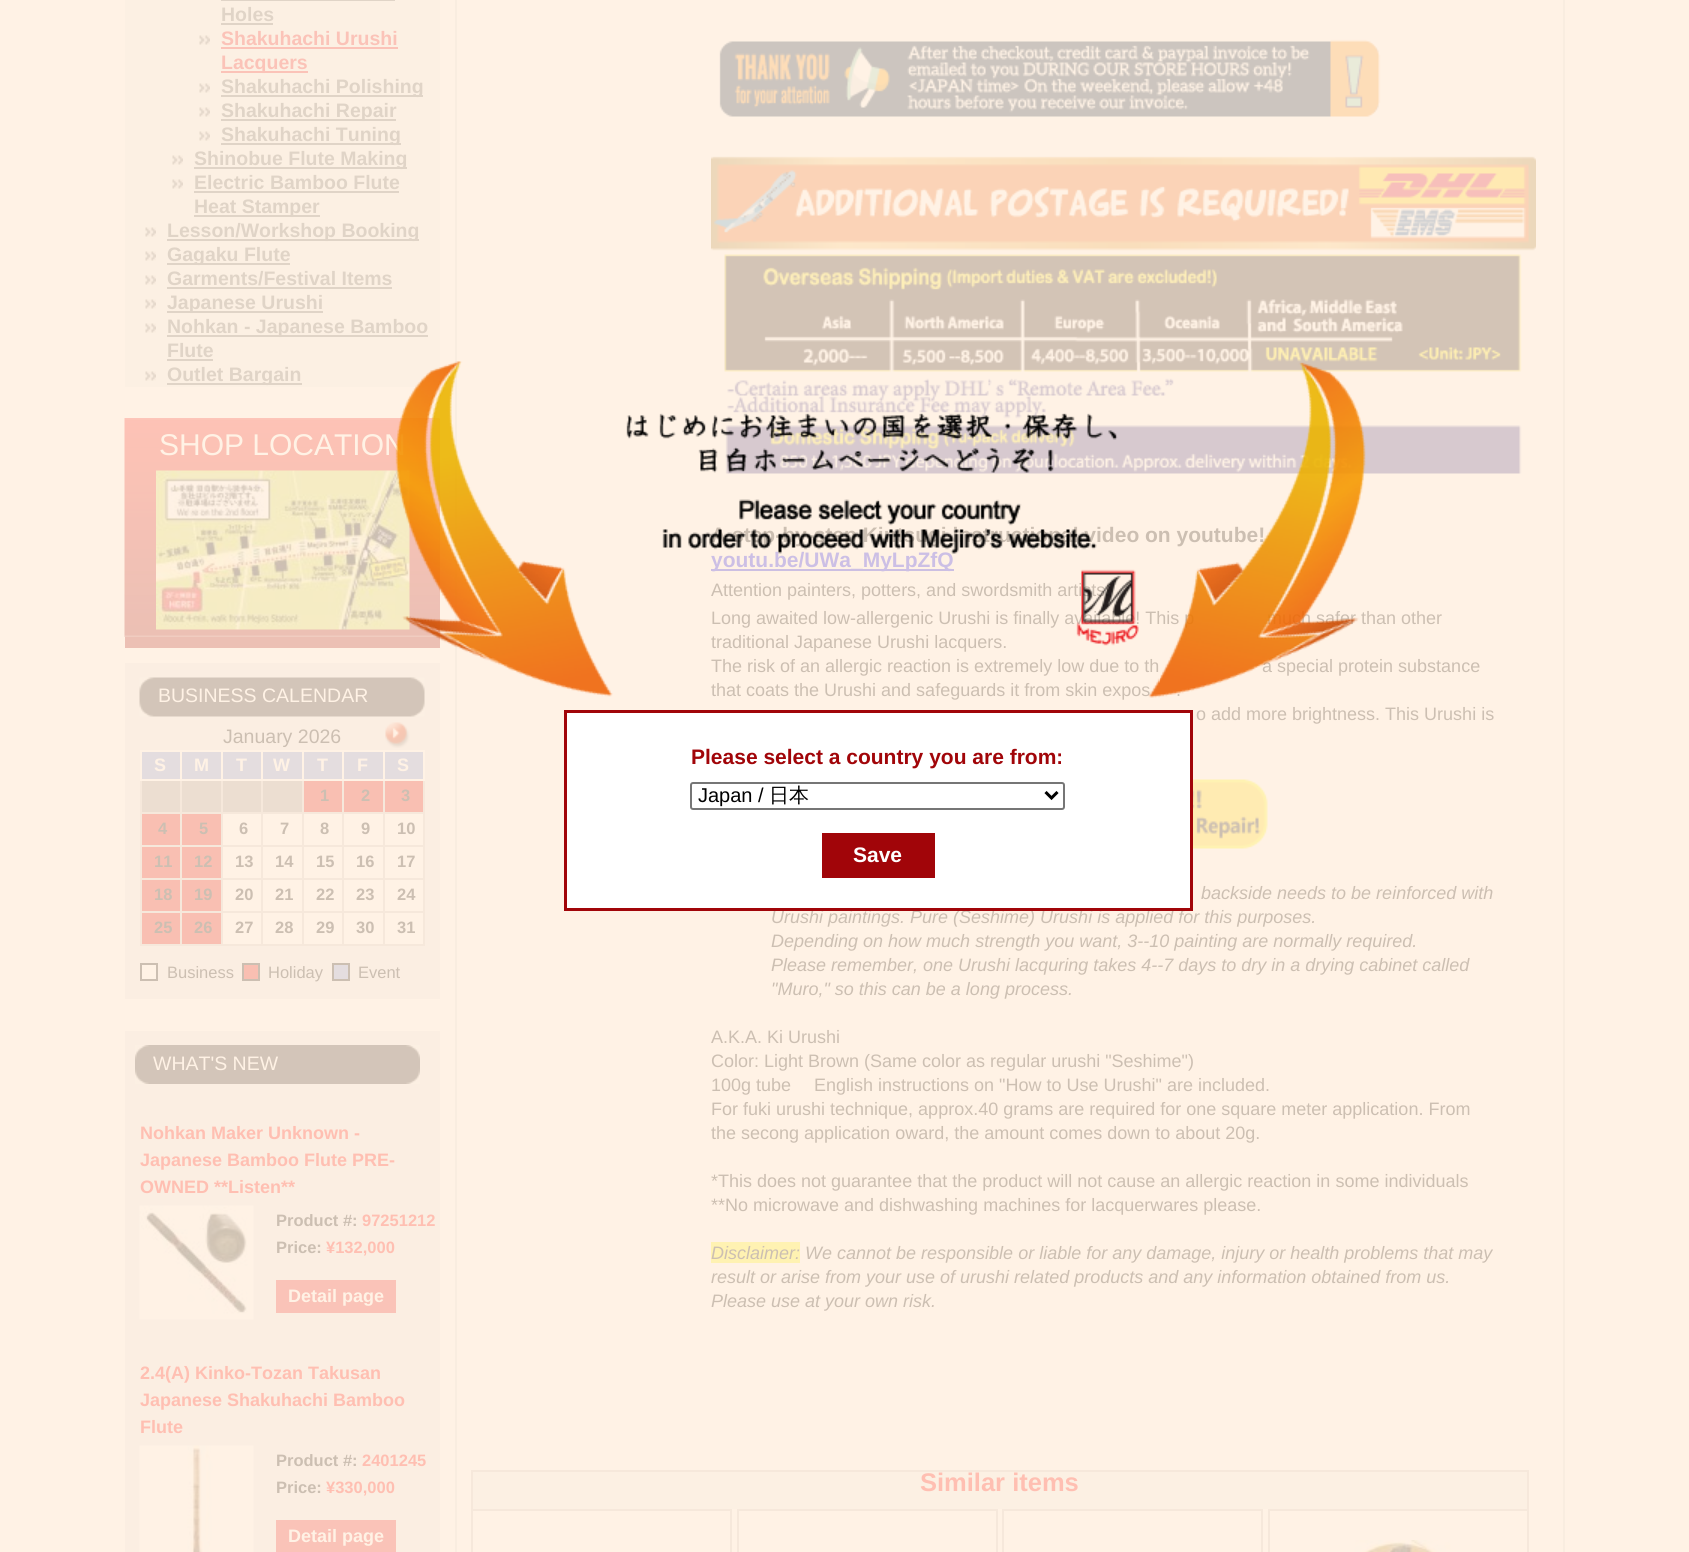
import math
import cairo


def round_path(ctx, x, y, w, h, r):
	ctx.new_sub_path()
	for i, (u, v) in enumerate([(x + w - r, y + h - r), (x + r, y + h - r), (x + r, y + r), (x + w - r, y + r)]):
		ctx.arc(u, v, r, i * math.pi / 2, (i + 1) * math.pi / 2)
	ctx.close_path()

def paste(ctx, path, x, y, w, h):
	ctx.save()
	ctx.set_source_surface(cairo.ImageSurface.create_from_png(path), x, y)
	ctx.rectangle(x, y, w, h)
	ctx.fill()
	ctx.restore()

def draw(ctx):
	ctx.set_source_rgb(1, 0.949, 0.898)
	ctx.paint()
	ctx.set_source_rgb(0.988, 0.941, 0.89)
	ctx.rectangle(125, 0, 315, 387)
	ctx.fill()
	ctx.select_font_face('Liberation Sans', cairo.FONT_SLANT_NORMAL, cairo.FONT_WEIGHT_BOLD)
	ctx.set_font_size(19.5)
	ctx.set_source_rgb(0.878, 0.831, 0.78)
	ctx.move_to(221, 21)
	ctx.show_text('Holes')
	ctx.rectangle(221, 0, 174, 1)
	ctx.fill()
	ctx.rectangle(221, 23, 52, 2)
	ctx.fill()
	paste(ctx, 'media/1.png', 199, 35, 11, 10)
	ctx.set_source_rgb(0.984, 0.765, 0.722)
	ctx.move_to(221, 45)
	ctx.show_text('Shakuhachi Urushi')
	ctx.rectangle(221, 47, 177, 2)
	ctx.fill()
	ctx.rectangle(221, 71, 87, 2)
	ctx.fill()
	ctx.move_to(221, 69)
	ctx.show_text('Lacquers')
	paste(ctx, 'media/1.png', 199, 83, 11, 10)
	ctx.set_source_rgb(0.878, 0.831, 0.78)
	ctx.rectangle(221, 95, 202, 2)
	ctx.fill()
	ctx.move_to(221, 93)
	ctx.show_text('Shakuhachi Polishing')
	paste(ctx, 'media/1.png', 199, 107, 11, 10)
	ctx.rectangle(221, 119, 175, 2)
	ctx.fill()
	ctx.move_to(221, 117)
	ctx.show_text('Shakuhachi Repair')
	paste(ctx, 'media/1.png', 199, 131, 11, 10)
	ctx.rectangle(221, 143, 180, 2)
	ctx.fill()
	ctx.move_to(221, 141)
	ctx.show_text('Shakuhachi Tuning')
	paste(ctx, 'media/1.png', 172, 155, 11, 10)
	ctx.rectangle(194, 167, 213, 2)
	ctx.fill()
	ctx.move_to(194, 165)
	ctx.show_text('Shinobue Flute Making')
	paste(ctx, 'media/1.png', 172, 179, 11, 10)
	ctx.move_to(194, 189)
	ctx.show_text('Electric Bamboo Flute')
	ctx.rectangle(194, 191, 205, 2)
	ctx.fill()
	ctx.rectangle(194, 215, 126, 2)
	ctx.fill()
	ctx.move_to(194, 213)
	ctx.show_text('Heat Stamper')
	paste(ctx, 'media/1.png', 145, 227, 11, 10)
	ctx.rectangle(167, 239, 252, 2)
	ctx.fill()
	ctx.move_to(167, 237)
	ctx.show_text('Lesson/Workshop Booking')
	paste(ctx, 'media/1.png', 145, 251, 11, 10)
	ctx.rectangle(167, 263, 123, 2)
	ctx.fill()
	ctx.move_to(167, 261)
	ctx.show_text('Gagaku Flute')
	paste(ctx, 'media/1.png', 145, 275, 11, 10)
	ctx.move_to(167, 285)
	ctx.show_text('Garments/Festival Items')
	ctx.rectangle(167, 287, 225, 2)
	ctx.fill()
	paste(ctx, 'media/1.png', 145, 299, 11, 10)
	ctx.rectangle(167, 311, 156, 2)
	ctx.fill()
	ctx.move_to(167, 309)
	ctx.show_text('Japanese Urushi')
	paste(ctx, 'media/1.png', 145, 323, 11, 10)
	ctx.rectangle(167, 335, 261, 2)
	ctx.fill()
	ctx.move_to(167, 333)
	ctx.show_text('Nohkan - Japanese Bamboo')
	ctx.move_to(167, 357)
	ctx.show_text('Flute')
	ctx.rectangle(167, 359, 46, 2)
	ctx.fill()
	paste(ctx, 'media/1.png', 145, 371, 11, 10)
	ctx.rectangle(167, 383, 135, 2)
	ctx.fill()
	ctx.move_to(167, 381)
	ctx.show_text('Outlet Bargain')
	ctx.set_source_rgb(0.925, 0.753, 0.706)
	ctx.rectangle(125, 419, 315, 229)
	ctx.fill()
	paste(ctx, 'media/2.png', 124, 418, 316, 219)
	ctx.select_font_face('Liberation Sans')
	ctx.set_font_size(30)
	ctx.set_source_rgb(1, 0.949, 0.898)
	ctx.move_to(159, 455)
	ctx.show_text('SHOP LOCATION')
	paste(ctx, 'media/3.png', 156, 470, 254, 160)
	ctx.set_source_rgb(0.984, 0.933, 0.886)
	ctx.rectangle(125, 663, 315, 336)
	ctx.fill()
	paste(ctx, 'media/4.png', 139, 677, 286, 40)
	ctx.set_font_size(19.5)
	ctx.set_source_rgb(1, 0.949, 0.898)
	ctx.move_to(158, 702)
	ctx.show_text('BUSINESS CALENDAR')
	ctx.set_source_rgb(0.8, 0.749, 0.698)
	ctx.move_to(223, 743)
	ctx.show_text('January 2026')
	paste(ctx, 'media/5.png', 385, 722, 25, 26)
	ctx.set_source_rgb(0.894, 0.867, 0.875)
	ctx.rectangle(142, 752, 38, 27)
	ctx.fill()
	ctx.set_source_rgb(1, 0.949, 0.898)
	ctx.rectangle(383, 750, 42, 2)
	ctx.fill()
	ctx.set_source_rgb(0.961, 0.91, 0.859)
	ctx.rectangle(383, 812, 42, 2)
	ctx.rectangle(383, 845, 42, 2)
	ctx.rectangle(383, 878, 42, 2)
	ctx.rectangle(383, 911, 42, 2)
	ctx.rectangle(423, 911, 2, 34)
	ctx.rectangle(423, 878, 2, 34)
	ctx.rectangle(423, 845, 2, 34)
	ctx.rectangle(423, 779, 2, 67)
	ctx.fill()
	ctx.set_source_rgb(1, 0.949, 0.898)
	ctx.rectangle(423, 750, 2, 30)
	ctx.rectangle(223, 814, 200, 31)
	ctx.rectangle(223, 847, 200, 31)
	ctx.rectangle(223, 880, 200, 31)
	ctx.rectangle(223, 913, 200, 31)
	ctx.fill()
	ctx.set_source_rgb(0.961, 0.91, 0.859)
	ctx.rectangle(383, 944, 42, 2)
	ctx.rectangle(383, 911, 2, 34)
	ctx.rectangle(342, 911, 42, 2)
	ctx.rectangle(383, 878, 2, 34)
	ctx.rectangle(342, 878, 42, 2)
	ctx.rectangle(383, 845, 2, 34)
	ctx.rectangle(342, 845, 42, 2)
	ctx.rectangle(383, 812, 2, 34)
	ctx.rectangle(342, 812, 42, 2)
	ctx.rectangle(383, 779, 2, 34)
	ctx.fill()
	ctx.set_source_rgb(1, 0.949, 0.898)
	ctx.rectangle(383, 779, 42, 2)
	ctx.rectangle(383, 750, 2, 30)
	ctx.rectangle(342, 750, 42, 2)
	ctx.fill()
	ctx.set_source_rgb(0.961, 0.91, 0.859)
	ctx.rectangle(342, 944, 42, 2)
	ctx.rectangle(342, 911, 2, 34)
	ctx.rectangle(302, 911, 42, 2)
	ctx.rectangle(342, 878, 2, 34)
	ctx.rectangle(302, 878, 42, 2)
	ctx.rectangle(342, 845, 2, 34)
	ctx.rectangle(302, 845, 42, 2)
	ctx.rectangle(342, 812, 2, 34)
	ctx.rectangle(302, 812, 42, 2)
	ctx.rectangle(342, 779, 2, 34)
	ctx.fill()
	ctx.set_source_rgb(1, 0.949, 0.898)
	ctx.rectangle(342, 779, 42, 2)
	ctx.rectangle(342, 750, 2, 30)
	ctx.rectangle(302, 750, 42, 2)
	ctx.fill()
	ctx.set_source_rgb(0.961, 0.91, 0.859)
	ctx.rectangle(302, 944, 42, 2)
	ctx.rectangle(302, 911, 2, 34)
	ctx.rectangle(261, 911, 42, 2)
	ctx.rectangle(302, 878, 2, 34)
	ctx.rectangle(261, 878, 42, 2)
	ctx.rectangle(302, 845, 2, 34)
	ctx.rectangle(261, 845, 42, 2)
	ctx.rectangle(302, 812, 2, 34)
	ctx.rectangle(261, 812, 42, 2)
	ctx.rectangle(302, 779, 2, 34)
	ctx.fill()
	ctx.set_source_rgb(1, 0.949, 0.898)
	ctx.rectangle(302, 779, 42, 2)
	ctx.rectangle(302, 750, 2, 30)
	ctx.rectangle(261, 750, 42, 2)
	ctx.fill()
	ctx.set_source_rgb(0.961, 0.91, 0.859)
	ctx.rectangle(261, 944, 42, 2)
	ctx.rectangle(261, 911, 2, 34)
	ctx.rectangle(221, 911, 42, 2)
	ctx.rectangle(261, 878, 2, 34)
	ctx.rectangle(221, 878, 42, 2)
	ctx.rectangle(261, 845, 2, 34)
	ctx.rectangle(221, 845, 42, 2)
	ctx.rectangle(261, 812, 2, 34)
	ctx.rectangle(221, 812, 42, 2)
	ctx.rectangle(261, 779, 2, 34)
	ctx.fill()
	ctx.set_source_rgb(1, 0.949, 0.898)
	ctx.rectangle(261, 779, 42, 2)
	ctx.rectangle(261, 750, 2, 30)
	ctx.rectangle(221, 750, 42, 2)
	ctx.fill()
	ctx.set_source_rgb(0.961, 0.91, 0.859)
	ctx.rectangle(221, 944, 42, 2)
	ctx.rectangle(221, 911, 2, 34)
	ctx.rectangle(180, 911, 42, 2)
	ctx.rectangle(221, 878, 2, 34)
	ctx.rectangle(180, 878, 42, 2)
	ctx.rectangle(221, 845, 2, 34)
	ctx.rectangle(180, 845, 42, 2)
	ctx.rectangle(221, 812, 2, 34)
	ctx.rectangle(180, 812, 42, 2)
	ctx.rectangle(221, 779, 2, 34)
	ctx.fill()
	ctx.set_source_rgb(1, 0.949, 0.898)
	ctx.rectangle(221, 779, 42, 2)
	ctx.rectangle(221, 750, 2, 30)
	ctx.rectangle(180, 750, 42, 2)
	ctx.fill()
	ctx.set_source_rgb(0.961, 0.91, 0.859)
	ctx.rectangle(180, 944, 42, 2)
	ctx.rectangle(180, 911, 2, 34)
	ctx.rectangle(140, 911, 42, 2)
	ctx.rectangle(180, 878, 2, 34)
	ctx.rectangle(140, 878, 42, 2)
	ctx.rectangle(180, 845, 2, 34)
	ctx.rectangle(140, 845, 42, 2)
	ctx.rectangle(180, 812, 2, 34)
	ctx.rectangle(140, 812, 42, 2)
	ctx.rectangle(180, 779, 2, 34)
	ctx.fill()
	ctx.set_source_rgb(1, 0.949, 0.898)
	ctx.rectangle(180, 779, 42, 2)
	ctx.rectangle(180, 750, 2, 30)
	ctx.rectangle(140, 750, 42, 2)
	ctx.fill()
	ctx.set_source_rgb(0.961, 0.91, 0.859)
	ctx.rectangle(140, 944, 42, 2)
	ctx.rectangle(140, 911, 2, 34)
	ctx.rectangle(140, 878, 2, 34)
	ctx.rectangle(140, 845, 2, 34)
	ctx.rectangle(140, 779, 2, 67)
	ctx.fill()
	ctx.set_source_rgb(1, 0.949, 0.898)
	ctx.rectangle(140, 779, 42, 2)
	ctx.rectangle(140, 750, 2, 30)
	ctx.fill()
	ctx.select_font_face('Liberation Sans', cairo.FONT_SLANT_NORMAL, cairo.FONT_WEIGHT_BOLD)
	ctx.set_font_size(18)
	ctx.move_to(154, 771)
	ctx.show_text('S')
	ctx.set_source_rgb(0.894, 0.867, 0.875)
	ctx.rectangle(182, 752, 39, 27)
	ctx.fill()
	ctx.set_source_rgb(1, 0.949, 0.898)
	ctx.move_to(194, 771)
	ctx.show_text('M')
	ctx.set_source_rgb(0.894, 0.867, 0.875)
	ctx.rectangle(223, 752, 38, 27)
	ctx.fill()
	ctx.set_source_rgb(1, 0.949, 0.898)
	ctx.move_to(236, 771)
	ctx.show_text('T')
	ctx.set_source_rgb(0.894, 0.867, 0.875)
	ctx.rectangle(263, 752, 39, 27)
	ctx.fill()
	ctx.set_source_rgb(1, 0.949, 0.898)
	ctx.move_to(273, 771)
	ctx.show_text('W')
	ctx.set_source_rgb(0.894, 0.867, 0.875)
	ctx.rectangle(304, 752, 38, 27)
	ctx.fill()
	ctx.set_source_rgb(1, 0.949, 0.898)
	ctx.move_to(317, 771)
	ctx.show_text('T')
	ctx.set_source_rgb(0.894, 0.867, 0.875)
	ctx.rectangle(344, 752, 39, 27)
	ctx.fill()
	ctx.set_source_rgb(1, 0.949, 0.898)
	ctx.move_to(357, 771)
	ctx.show_text('F')
	ctx.set_source_rgb(0.894, 0.867, 0.875)
	ctx.rectangle(385, 752, 38, 27)
	ctx.fill()
	ctx.set_source_rgb(1, 0.949, 0.898)
	ctx.move_to(397, 771)
	ctx.show_text('S')
	ctx.set_source_rgb(0.922, 0.871, 0.82)
	ctx.rectangle(142, 781, 38, 31)
	ctx.rectangle(182, 781, 39, 31)
	ctx.rectangle(223, 781, 38, 31)
	ctx.rectangle(263, 781, 39, 31)
	ctx.fill()
	ctx.set_source_rgb(0.973, 0.749, 0.698)
	ctx.rectangle(304, 781, 38, 31)
	ctx.fill()
	ctx.set_font_size(16.5)
	ctx.set_source_rgb(0.8, 0.749, 0.698)
	ctx.move_to(320, 801)
	ctx.show_text('1')
	ctx.set_source_rgb(0.973, 0.749, 0.698)
	ctx.rectangle(344, 781, 39, 31)
	ctx.fill()
	ctx.set_source_rgb(0.8, 0.749, 0.698)
	ctx.move_to(361, 801)
	ctx.show_text('2')
	ctx.set_source_rgb(0.973, 0.749, 0.698)
	ctx.rectangle(385, 781, 38, 31)
	ctx.fill()
	ctx.set_source_rgb(0.8, 0.749, 0.698)
	ctx.move_to(401, 801)
	ctx.show_text('3')
	ctx.set_source_rgb(0.973, 0.749, 0.698)
	ctx.rectangle(142, 814, 38, 31)
	ctx.fill()
	ctx.set_source_rgb(0.8, 0.749, 0.698)
	ctx.move_to(158, 834)
	ctx.show_text('4')
	ctx.set_source_rgb(0.973, 0.749, 0.698)
	ctx.rectangle(182, 814, 39, 31)
	ctx.fill()
	ctx.set_source_rgb(0.8, 0.749, 0.698)
	for x, y, s in [
		(199, 834, '5'),
		(239, 834, '6'),
		(280, 834, '7'),
		(320, 834, '8'),
		(361, 834, '9'),
		(397, 834, '10'),
	]:
		ctx.move_to(x, y)
		ctx.show_text(s)
	ctx.set_source_rgb(0.973, 0.749, 0.698)
	ctx.rectangle(142, 847, 38, 31)
	ctx.fill()
	ctx.set_source_rgb(0.8, 0.749, 0.698)
	ctx.move_to(154, 867)
	ctx.show_text('11')
	ctx.set_source_rgb(0.973, 0.749, 0.698)
	ctx.rectangle(182, 847, 39, 31)
	ctx.fill()
	ctx.set_source_rgb(0.8, 0.749, 0.698)
	for x, y, s in [
		(194, 867, '12'),
		(235, 867, '13'),
		(275, 867, '14'),
		(316, 867, '15'),
		(356, 867, '16'),
		(397, 867, '17'),
	]:
		ctx.move_to(x, y)
		ctx.show_text(s)
	ctx.set_source_rgb(0.973, 0.749, 0.698)
	ctx.rectangle(142, 880, 38, 31)
	ctx.fill()
	ctx.set_source_rgb(0.8, 0.749, 0.698)
	ctx.move_to(154, 900)
	ctx.show_text('18')
	ctx.set_source_rgb(0.973, 0.749, 0.698)
	ctx.rectangle(182, 880, 39, 31)
	ctx.fill()
	ctx.set_source_rgb(0.8, 0.749, 0.698)
	for x, y, s in [
		(194, 900, '19'),
		(235, 900, '20'),
		(275, 900, '21'),
		(316, 900, '22'),
		(356, 900, '23'),
		(397, 900, '24'),
	]:
		ctx.move_to(x, y)
		ctx.show_text(s)
	ctx.set_source_rgb(0.973, 0.749, 0.698)
	ctx.rectangle(142, 913, 38, 31)
	ctx.fill()
	ctx.set_source_rgb(0.8, 0.749, 0.698)
	ctx.move_to(154, 933)
	ctx.show_text('25')
	ctx.set_source_rgb(0.973, 0.749, 0.698)
	ctx.rectangle(182, 913, 39, 31)
	ctx.fill()
	ctx.set_source_rgb(0.8, 0.749, 0.698)
	for x, y, s in [
		(194, 933, '26'),
		(235, 933, '27'),
		(275, 933, '28'),
		(316, 933, '29'),
		(356, 933, '30'),
		(397, 933, '31'),
	]:
		ctx.move_to(x, y)
		ctx.show_text(s)
	ctx.set_source_rgb(1, 0.949, 0.898)
	ctx.rectangle(141, 964, 16, 16)
	ctx.fill_preserve()
	ctx.set_source_rgb(0.8, 0.749, 0.698)
	ctx.stroke()
	ctx.select_font_face('Liberation Sans')
	ctx.move_to(167, 978)
	ctx.show_text('Business')
	ctx.set_source_rgb(0.973, 0.749, 0.698)
	ctx.rectangle(243, 964, 16, 16)
	ctx.fill_preserve()
	ctx.set_source_rgb(0.8, 0.749, 0.698)
	ctx.stroke()
	ctx.move_to(268, 978)
	ctx.show_text('Holiday')
	ctx.set_source_rgb(0.894, 0.867, 0.875)
	ctx.rectangle(333, 964, 16, 16)
	ctx.fill_preserve()
	ctx.set_source_rgb(0.8, 0.749, 0.698)
	ctx.stroke()
	ctx.move_to(358, 978)
	ctx.show_text('Event')
	ctx.select_font_face('Liberation Sans', cairo.FONT_SLANT_ITALIC)
	ctx.set_font_size(18)
	ctx.move_to(771, 923)
	ctx.show_text('Urushi paintings. Pure (Seshime) Urushi is applied for this purposes.')
	ctx.set_source_rgb(1, 1, 1)
	ctx.rectangle(565.5, 711.5, 626, 198)
	ctx.fill_preserve()
	ctx.set_source_rgb(0.631, 0.02, 0.039)
	ctx.set_line_width(3)
	ctx.stroke()
	ctx.set_source_rgb(0.976, 0.929, 0.878)
	ctx.rectangle(455, 0, 2, 1552)
	ctx.fill()
	paste(ctx, 'media/11.png', 711, 156, 825, 318)
	ctx.select_font_face('Liberation Sans', cairo.FONT_SLANT_NORMAL, cairo.FONT_WEIGHT_BOLD)
	ctx.set_font_size(21)
	ctx.set_source_rgb(0.8, 0.749, 0.698)
	ctx.move_to(711, 542)
	ctx.show_text('A step-by-step Kintsugi instructional video on youtube!')
	ctx.set_source_rgb(0.8, 0.749, 0.886)
	ctx.rectangle(711, 569, 243, 2)
	ctx.fill()
	ctx.set_source_rgb(0.8, 0.749, 0.898)
	ctx.move_to(711, 567)
	ctx.show_text('youtu.be/UWa_MyLpZfQ')
	ctx.select_font_face('Liberation Sans')
	ctx.set_font_size(18)
	ctx.set_source_rgb(0.8, 0.749, 0.698)
	for x, y, s in [
		(711, 596, 'Attention painters, potters, and swordsmith artists!'),
		(711, 624, 'Long awaited low-allergenic Urushi is finally available! This p'),
		(1267, 624, 'much safer than other'),
		(711, 648, 'traditional Japanese Urushi lacquers.'),
		(711, 672, 'The risk of an allergic reaction is extremely low due to th'),
		(1262, 672, 'a special protein substance'),
		(711, 696, 'that coats the Urushi and safeguards it from skin expos'),
		(1176, 696, '.'),
	]:
		ctx.move_to(x, y)
		ctx.show_text(s)
	paste(ctx, 'media/6.png', 395, 361, 971, 337)
	ctx.select_font_face('Liberation Sans', cairo.FONT_SLANT_NORMAL, cairo.FONT_WEIGHT_BOLD)
	ctx.set_font_size(21)
	ctx.set_source_rgb(0.631, 0.02, 0.039)
	ctx.move_to(691, 764)
	ctx.show_text('Please select a country you are from:')
	round_path(ctx, 691, 783, 373, 26, 2)
	ctx.set_source_rgb(0.463, 0.463, 0.463)
	ctx.set_line_width(2)
	ctx.stroke()
	ctx.new_path()
	ctx.move_to(1045.5, 792)
	ctx.line_to(1051.5, 798)
	ctx.line_to(1057.5, 792)
	ctx.set_source_rgb(0, 0, 0)
	ctx.set_line_width(3)
	ctx.stroke()
	ctx.select_font_face('Liberation Sans')
	ctx.set_font_size(20)
	ctx.move_to(698, 802)
	ctx.show_text('Japan /')
	ctx.select_font_face('WenQuanYi Zen Hei Medium')
	ctx.move_to(769, 802)
	ctx.show_text('日本')
	ctx.set_source_rgb(0.631, 0.02, 0.039)
	ctx.rectangle(822, 833, 113, 45)
	ctx.fill()
	ctx.select_font_face('Liberation Sans', cairo.FONT_SLANT_NORMAL, cairo.FONT_WEIGHT_BOLD)
	ctx.set_font_size(21)
	ctx.set_source_rgb(1, 1, 1)
	ctx.move_to(853, 862)
	ctx.show_text('Save')
	ctx.set_source_rgb(0.984, 0.933, 0.886)
	ctx.rectangle(125, 1031, 315, 521)
	ctx.fill()
	paste(ctx, 'media/7.png', 135, 1045, 285, 39)
	ctx.select_font_face('Liberation Sans')
	ctx.set_font_size(19.5)
	ctx.set_source_rgb(1, 0.949, 0.898)
	ctx.move_to(153, 1070)
	ctx.show_text('WHAT\'S NEW')
	ctx.select_font_face('Liberation Sans', cairo.FONT_SLANT_NORMAL, cairo.FONT_WEIGHT_BOLD)
	ctx.set_font_size(18)
	ctx.set_source_rgb(1, 0.749, 0.698)
	for x, y, s in [
		(140, 1139, 'Nohkan Maker Unknown -'),
		(140, 1166, 'Japanese Bamboo Flute PRE-'),
		(140, 1193, 'OWNED **Listen**'),
	]:
		ctx.move_to(x, y)
		ctx.show_text(s)
	paste(ctx, 'media/8.png', 139, 1205, 115, 115)
	ctx.set_font_size(16.5)
	ctx.set_source_rgb(0.8, 0.749, 0.698)
	ctx.move_to(276, 1226)
	ctx.show_text('Product #:')
	ctx.set_source_rgb(1, 0.749, 0.698)
	ctx.move_to(362, 1226)
	ctx.show_text('97251212')
	ctx.set_source_rgb(0.8, 0.749, 0.698)
	ctx.move_to(276, 1253)
	ctx.show_text('Price:')
	ctx.set_source_rgb(1, 0.749, 0.698)
	ctx.move_to(326, 1253)
	ctx.show_text('¥132,000')
	ctx.set_source_rgb(0.98, 0.765, 0.722)
	ctx.rectangle(276, 1280, 120, 33)
	ctx.fill()
	ctx.set_font_size(18)
	ctx.set_source_rgb(1, 0.949, 0.898)
	ctx.move_to(288, 1302)
	ctx.show_text('Detail page')
	ctx.set_source_rgb(1, 0.749, 0.698)
	for x, y, s in [
		(140, 1379, '2.4(A) Kinko-Tozan Takusan'),
		(140, 1406, 'Japanese Shakuhachi Bamboo'),
		(140, 1433, 'Flute'),
	]:
		ctx.move_to(x, y)
		ctx.show_text(s)
	paste(ctx, 'media/9.png', 139, 1445, 115, 107)
	ctx.set_font_size(16.5)
	ctx.set_source_rgb(0.8, 0.749, 0.698)
	ctx.move_to(276, 1466)
	ctx.show_text('Product #:')
	ctx.set_source_rgb(1, 0.749, 0.698)
	ctx.move_to(362, 1466)
	ctx.show_text('2401245')
	ctx.set_source_rgb(0.8, 0.749, 0.698)
	ctx.move_to(276, 1493)
	ctx.show_text('Price:')
	ctx.set_source_rgb(1, 0.749, 0.698)
	ctx.move_to(326, 1493)
	ctx.show_text('¥330,000')
	ctx.set_source_rgb(0.98, 0.765, 0.722)
	ctx.rectangle(276, 1520, 120, 32)
	ctx.fill()
	ctx.set_font_size(18)
	ctx.set_source_rgb(1, 0.949, 0.898)
	ctx.move_to(288, 1542)
	ctx.show_text('Detail page')
	ctx.set_source_rgb(0.976, 0.929, 0.878)
	ctx.rectangle(1563, 0, 2, 1552)
	ctx.fill()
	paste(ctx, 'media/10.png', 719, 39, 662, 78)
	ctx.select_font_face('Liberation Sans')
	ctx.set_source_rgb(0.8, 0.749, 0.698)
	ctx.move_to(1196, 720)
	ctx.show_text('o add more brightness. This Urushi is')
	paste(ctx, 'media/12.png', 1193, 779, 75, 70)
	ctx.select_font_face('Liberation Sans', cairo.FONT_SLANT_ITALIC)
	for x, y, s in [
		(1201, 899, 'backside needs to be reinforced with'),
		(771, 947, 'Depending on how much strength you want, 3--10 painting are normally required.'),
		(771, 971, 'Please remember, one Urushi lacquring takes 4--7 days to dry in a drying cabinet called'),
		(771, 995, '"Muro," so this can be a long process.'),
	]:
		ctx.move_to(x, y)
		ctx.show_text(s)
	ctx.select_font_face('Liberation Sans')
	for x, y, s in [
		(711, 1043, 'A.K.A. Ki Urushi'),
		(711, 1067, 'Color: Light Brown (Same color as regular urushi "Seshime")'),
		(711, 1091, '100g tube'),
		(814, 1091, 'English instructions on "How to Use Urushi" are included.'),
		(711, 1115, 'For fuki urushi technique, approx.40 grams are required for one square meter application. From'),
		(711, 1139, 'the secong application oward, the amount comes down to about 20g.'),
		(711, 1187, '*This does not guarantee that the product will not cause an allergic reaction in some individuals'),
		(711, 1211, '**No microwave and dishwashing machines for lacquerwares please.'),
	]:
		ctx.move_to(x, y)
		ctx.show_text(s)
	ctx.set_source_rgb(1, 0.949, 0.698)
	ctx.rectangle(711, 1242, 89, 21)
	ctx.fill()
	ctx.select_font_face('Liberation Sans', cairo.FONT_SLANT_ITALIC)
	ctx.set_source_rgb(0.8, 0.749, 0.698)
	for x, y, s in [
		(711, 1259, 'Disclaimer: We cannot be responsible or liable for any damage, injury or health problems that may'),
		(711, 1283, 'result or arise from your use of urushi related products and any information obtained from us.'),
		(711, 1307, 'Please use at your own risk.'),
	]:
		ctx.move_to(x, y)
		ctx.show_text(s)
	ctx.set_source_rgb(0.988, 0.941, 0.89)
	ctx.rectangle(473, 1472, 1054, 37)
	ctx.fill()
	ctx.set_source_rgb(0.961, 0.91, 0.859)
	ctx.rectangle(471, 1470, 1058, 2)
	ctx.rectangle(1527, 1470, 2, 39)
	ctx.rectangle(471, 1470, 2, 39)
	ctx.fill()
	ctx.select_font_face('Liberation Sans', cairo.FONT_SLANT_NORMAL, cairo.FONT_WEIGHT_BOLD)
	ctx.set_font_size(25.5)
	ctx.set_source_rgb(1, 0.749, 0.698)
	ctx.move_to(920, 1491)
	ctx.show_text('Similar items')
	ctx.rectangle(472, 1510, 259, 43)
	ctx.set_source_rgb(0.961, 0.91, 0.859)
	ctx.set_line_width(2)
	ctx.stroke()
	ctx.rectangle(738, 1510, 259, 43)
	ctx.stroke()
	ctx.rectangle(1003, 1510, 259, 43)
	ctx.stroke()
	ctx.rectangle(1269, 1510, 259, 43)
	ctx.stroke()
	paste(ctx, 'media/13.png', 1354, 1540, 97, 12)


surface = cairo.ImageSurface(cairo.FORMAT_RGB24, 1689, 1552)
ctx = cairo.Context(surface)
options = cairo.FontOptions()
options.set_hint_metrics(cairo.HINT_METRICS_OFF)
options.set_hint_style(cairo.HINT_STYLE_NONE)
ctx.set_font_options(options)
ctx.set_miter_limit(4)
draw(ctx)
surface.write_to_png('image.png')
